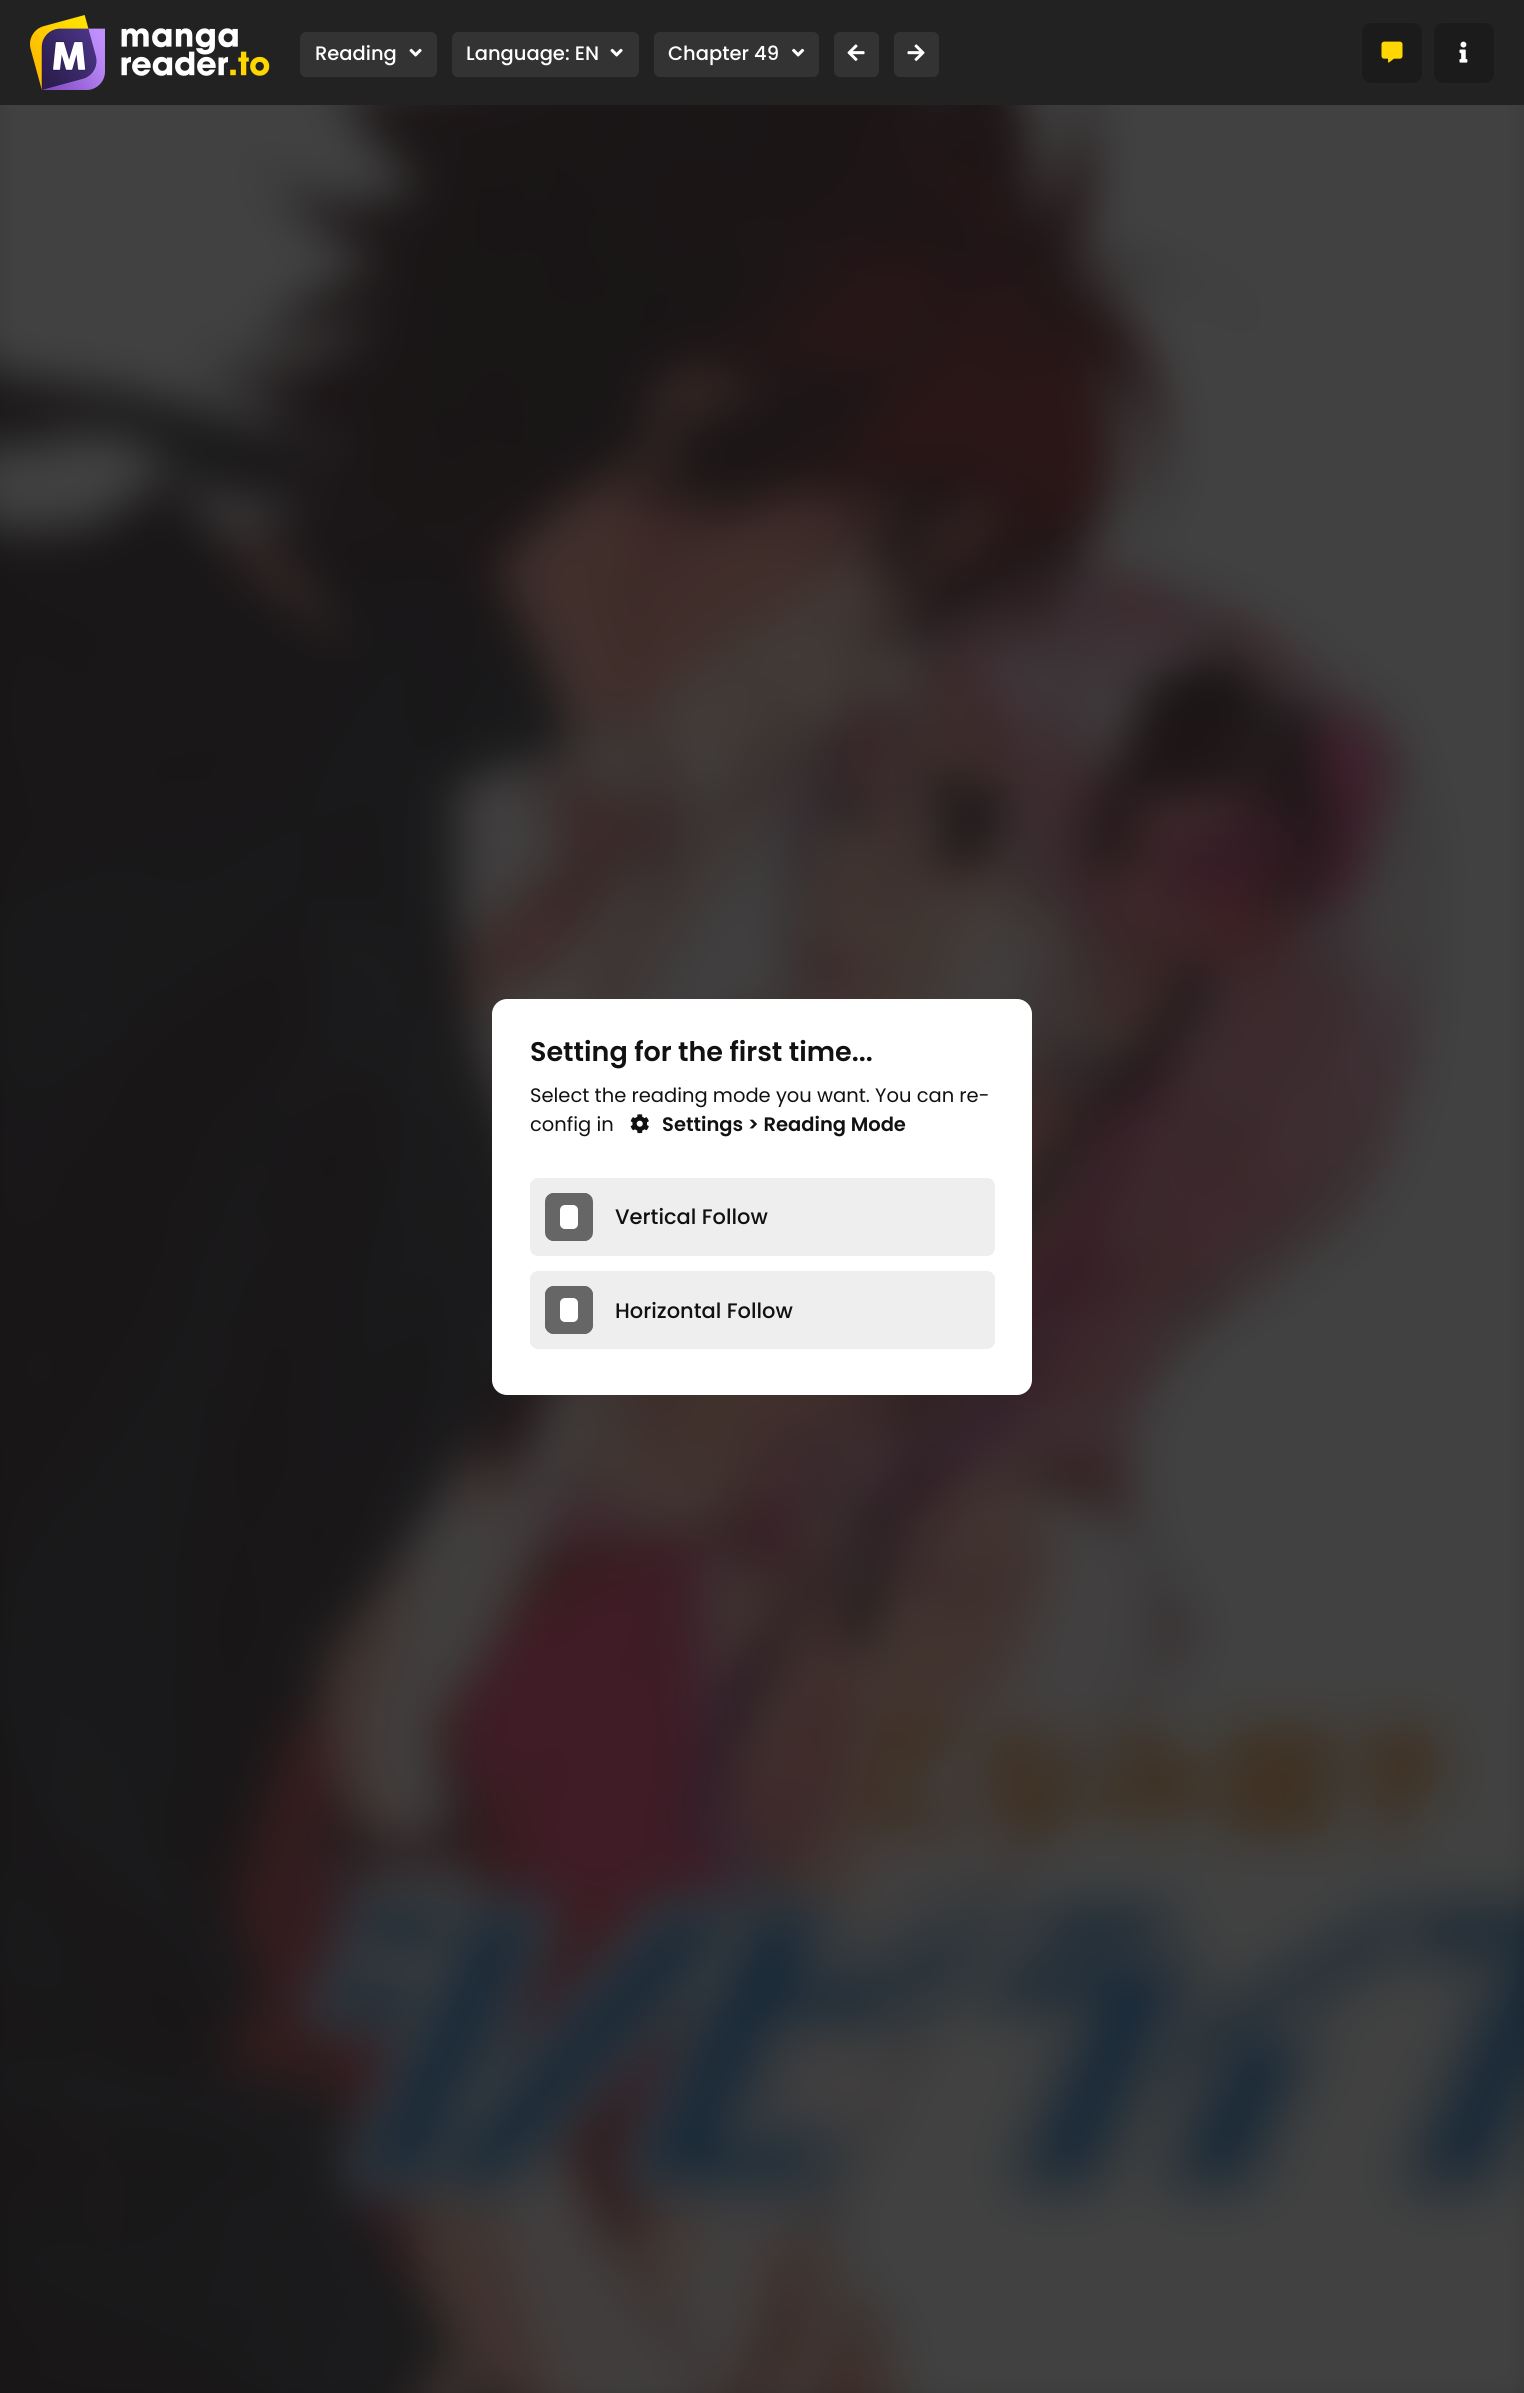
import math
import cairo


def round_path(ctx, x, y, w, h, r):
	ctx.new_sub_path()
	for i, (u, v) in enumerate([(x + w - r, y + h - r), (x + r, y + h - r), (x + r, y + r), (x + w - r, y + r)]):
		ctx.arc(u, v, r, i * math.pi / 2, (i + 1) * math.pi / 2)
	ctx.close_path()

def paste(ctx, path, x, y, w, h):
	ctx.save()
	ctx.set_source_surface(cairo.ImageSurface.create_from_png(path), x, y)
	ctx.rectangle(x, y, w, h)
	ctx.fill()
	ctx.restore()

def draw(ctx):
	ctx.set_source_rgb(0.067, 0.067, 0.067)
	ctx.paint()
	ctx.set_source_rgb(0.133, 0.133, 0.133)
	ctx.rectangle(0, 0, 1524, 105)
	ctx.fill()
	paste(ctx, 'media/1.png', 30, 15, 240, 75)
	ctx.set_source_rgb(0.2, 0.2, 0.2)
	round_path(ctx, 300, 32, 137, 45, 6)
	ctx.fill()
	ctx.select_font_face('Poppins Medium')
	ctx.set_font_size(19.5)
	ctx.set_source_rgb(1, 1, 1)
	ctx.move_to(315, 60)
	ctx.show_text('Reading')
	paste(ctx, 'media/2.png', 409, 48, 13, 9)
	ctx.set_source_rgb(0.2, 0.2, 0.2)
	round_path(ctx, 452, 32, 187, 45, 6)
	ctx.fill()
	ctx.set_source_rgb(1, 1, 1)
	ctx.move_to(466, 60)
	ctx.show_text('Language: EN')
	paste(ctx, 'media/2.png', 610, 48, 13, 9)
	ctx.set_source_rgb(0.2, 0.2, 0.2)
	round_path(ctx, 654, 32, 165, 45, 6)
	ctx.fill()
	ctx.set_source_rgb(1, 1, 1)
	ctx.move_to(668, 60)
	ctx.show_text('Chapter 49')
	paste(ctx, 'media/3.png', 792, 48, 13, 9)
	ctx.set_source_rgb(0.2, 0.2, 0.2)
	round_path(ctx, 834, 32, 45, 45, 6)
	ctx.fill()
	paste(ctx, 'media/4.png', 847, 44, 18, 17)
	round_path(ctx, 894, 32, 45, 45, 6)
	ctx.fill()
	paste(ctx, 'media/5.png', 907, 44, 18, 17)
	ctx.set_source_rgb(0.106, 0.106, 0.106)
	round_path(ctx, 1362, 23, 60, 60, 9)
	ctx.fill()
	paste(ctx, 'media/6.png', 1381, 41, 22, 22)
	round_path(ctx, 1434, 23, 60, 60, 9)
	ctx.fill()
	paste(ctx, 'media/7.png', 1459, 41, 9, 22)
	paste(ctx, 'media/8.png', 0, 105, 1524, 2288)
	ctx.set_source_rgb(1, 1, 1)
	round_path(ctx, 492, 999, 540, 396, 15)
	ctx.fill()
	ctx.select_font_face('Poppins SemiBold')
	ctx.set_font_size(27)
	ctx.set_source_rgb(0.067, 0.067, 0.067)
	ctx.move_to(530, 1061)
	ctx.show_text('Setting for the first time...')
	ctx.select_font_face('Poppins')
	ctx.set_font_size(19.5)
	ctx.move_to(530, 1102)
	ctx.show_text('Select the reading mode you want. You can re-')
	ctx.move_to(530, 1131)
	ctx.show_text('config in')
	paste(ctx, 'media/9.png', 630, 1114, 19, 20)
	ctx.select_font_face('Poppins SemiBold')
	ctx.move_to(662, 1131)
	ctx.show_text('Settings > Reading Mode')
	ctx.set_source_rgb(0.933, 0.933, 0.933)
	round_path(ctx, 530, 1178, 465, 78, 8)
	ctx.fill()
	ctx.set_source_rgb(0.4, 0.4, 0.4)
	round_path(ctx, 545, 1193, 48, 48, 9)
	ctx.fill()
	ctx.save()
	round_path(ctx, 545, 1193, 48, 48, 9)
	ctx.clip()
	ctx.rectangle(545, 1193, 48, 6)
	ctx.fill()
	ctx.restore()
	ctx.set_source_rgb(1, 1, 1)
	round_path(ctx, 560, 1205, 18, 24, 5)
	ctx.fill()
	ctx.save()
	round_path(ctx, 545, 1193, 48, 48, 9)
	ctx.clip()
	ctx.set_source_rgb(0.4, 0.4, 0.4)
	ctx.rectangle(545, 1235, 48, 6)
	ctx.fill()
	ctx.restore()
	ctx.select_font_face('Poppins Medium')
	ctx.set_font_size(21)
	ctx.set_source_rgb(0.067, 0.067, 0.067)
	ctx.move_to(615, 1224)
	ctx.show_text('Vertical Follow')
	ctx.set_source_rgb(0.933, 0.933, 0.933)
	round_path(ctx, 530, 1271, 465, 78, 8)
	ctx.fill()
	ctx.set_source_rgb(0.4, 0.4, 0.4)
	round_path(ctx, 545, 1286, 48, 48, 9)
	ctx.fill()
	ctx.new_path()
	ctx.move_to(554, 1286)
	ctx.line_to(554, 1334)
	ctx.curve_to(549, 1334, 545, 1330, 545, 1325)
	ctx.line_to(545, 1295)
	ctx.curve_to(545, 1290, 549, 1286, 554, 1286)
	ctx.close_path()
	ctx.fill()
	ctx.set_source_rgb(1, 1, 1)
	round_path(ctx, 560, 1298, 18, 24, 5)
	ctx.fill()
	ctx.set_source_rgb(0.4, 0.4, 0.4)
	ctx.new_path()
	ctx.move_to(584, 1286)
	ctx.curve_to(589, 1286, 593, 1290, 593, 1295)
	ctx.line_to(593, 1325)
	ctx.curve_to(593, 1330, 589, 1334, 584, 1334)
	ctx.close_path()
	ctx.fill()
	ctx.set_source_rgb(0.067, 0.067, 0.067)
	ctx.move_to(615, 1318)
	ctx.show_text('Horizontal Follow')


surface = cairo.ImageSurface(cairo.FORMAT_RGB24, 1524, 2393)
ctx = cairo.Context(surface)
options = cairo.FontOptions()
options.set_hint_metrics(cairo.HINT_METRICS_OFF)
options.set_hint_style(cairo.HINT_STYLE_NONE)
ctx.set_font_options(options)
ctx.set_miter_limit(4)
draw(ctx)
surface.write_to_png('image.png')
